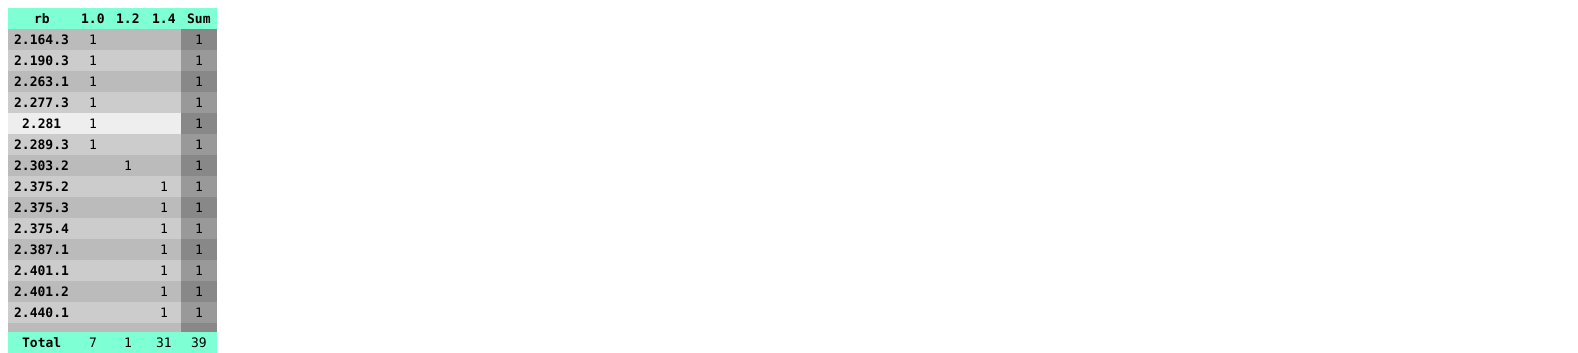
import math
import cairo


def draw(ctx):
	ctx.set_source_rgb(1, 1, 1)
	ctx.paint()
	ctx.set_source_rgb(0.498, 1, 0.831)
	ctx.rectangle(8, 8, 209, 21)
	ctx.fill()
	ctx.select_font_face('DejaVu Sans Mono', cairo.FONT_SLANT_NORMAL, cairo.FONT_WEIGHT_BOLD)
	ctx.set_font_size(13)
	ctx.set_source_rgb(0, 0, 0)
	for x, y, s in [
		(34, 23, 'rb'),
		(81, 23, '1.0'),
		(116, 23, '1.2'),
		(152, 23, '1.4'),
		(187, 23, 'Sum'),
	]:
		ctx.move_to(x, y)
		ctx.show_text(s)
	ctx.set_source_rgb(0.733, 0.733, 0.733)
	ctx.rectangle(8, 29, 173, 21)
	ctx.fill()
	ctx.set_source_rgb(0, 0, 0)
	ctx.move_to(14, 44)
	ctx.show_text('2.164.3')
	ctx.select_font_face('DejaVu Sans Mono')
	ctx.move_to(89, 44)
	ctx.show_text('1')
	ctx.set_source_rgb(0.533, 0.533, 0.533)
	ctx.rectangle(181, 29, 36, 21)
	ctx.fill()
	ctx.set_source_rgb(0, 0, 0)
	ctx.move_to(195, 44)
	ctx.show_text('1')
	ctx.set_source_rgb(0.8, 0.8, 0.8)
	ctx.rectangle(8, 50, 173, 21)
	ctx.fill()
	ctx.select_font_face('DejaVu Sans Mono', cairo.FONT_SLANT_NORMAL, cairo.FONT_WEIGHT_BOLD)
	ctx.set_source_rgb(0, 0, 0)
	ctx.move_to(14, 65)
	ctx.show_text('2.190.3')
	ctx.select_font_face('DejaVu Sans Mono')
	ctx.move_to(89, 65)
	ctx.show_text('1')
	ctx.set_source_rgb(0.6, 0.6, 0.6)
	ctx.rectangle(181, 50, 36, 21)
	ctx.fill()
	ctx.set_source_rgb(0, 0, 0)
	ctx.move_to(195, 65)
	ctx.show_text('1')
	ctx.set_source_rgb(0.733, 0.733, 0.733)
	ctx.rectangle(8, 71, 173, 21)
	ctx.fill()
	ctx.select_font_face('DejaVu Sans Mono', cairo.FONT_SLANT_NORMAL, cairo.FONT_WEIGHT_BOLD)
	ctx.set_source_rgb(0, 0, 0)
	ctx.move_to(14, 86)
	ctx.show_text('2.263.1')
	ctx.select_font_face('DejaVu Sans Mono')
	ctx.move_to(89, 86)
	ctx.show_text('1')
	ctx.set_source_rgb(0.533, 0.533, 0.533)
	ctx.rectangle(181, 71, 36, 21)
	ctx.fill()
	ctx.set_source_rgb(0, 0, 0)
	ctx.move_to(195, 86)
	ctx.show_text('1')
	ctx.set_source_rgb(0.8, 0.8, 0.8)
	ctx.rectangle(8, 92, 173, 21)
	ctx.fill()
	ctx.select_font_face('DejaVu Sans Mono', cairo.FONT_SLANT_NORMAL, cairo.FONT_WEIGHT_BOLD)
	ctx.set_source_rgb(0, 0, 0)
	ctx.move_to(14, 107)
	ctx.show_text('2.277.3')
	ctx.select_font_face('DejaVu Sans Mono')
	ctx.move_to(89, 107)
	ctx.show_text('1')
	ctx.set_source_rgb(0.6, 0.6, 0.6)
	ctx.rectangle(181, 92, 36, 21)
	ctx.fill()
	ctx.set_source_rgb(0, 0, 0)
	ctx.move_to(195, 107)
	ctx.show_text('1')
	ctx.set_source_rgb(0.933, 0.933, 0.933)
	ctx.rectangle(8, 113, 173, 21)
	ctx.fill()
	ctx.select_font_face('DejaVu Sans Mono', cairo.FONT_SLANT_NORMAL, cairo.FONT_WEIGHT_BOLD)
	ctx.set_source_rgb(0, 0, 0)
	ctx.move_to(22, 128)
	ctx.show_text('2.281')
	ctx.select_font_face('DejaVu Sans Mono')
	ctx.move_to(89, 128)
	ctx.show_text('1')
	ctx.set_source_rgb(0.533, 0.533, 0.533)
	ctx.rectangle(181, 113, 36, 21)
	ctx.fill()
	ctx.set_source_rgb(0, 0, 0)
	ctx.move_to(195, 128)
	ctx.show_text('1')
	ctx.set_source_rgb(0.8, 0.8, 0.8)
	ctx.rectangle(8, 134, 173, 21)
	ctx.fill()
	ctx.select_font_face('DejaVu Sans Mono', cairo.FONT_SLANT_NORMAL, cairo.FONT_WEIGHT_BOLD)
	ctx.set_source_rgb(0, 0, 0)
	ctx.move_to(14, 149)
	ctx.show_text('2.289.3')
	ctx.select_font_face('DejaVu Sans Mono')
	ctx.move_to(89, 149)
	ctx.show_text('1')
	ctx.set_source_rgb(0.6, 0.6, 0.6)
	ctx.rectangle(181, 134, 36, 21)
	ctx.fill()
	ctx.set_source_rgb(0, 0, 0)
	ctx.move_to(195, 149)
	ctx.show_text('1')
	ctx.set_source_rgb(0.733, 0.733, 0.733)
	ctx.rectangle(8, 155, 173, 21)
	ctx.fill()
	ctx.select_font_face('DejaVu Sans Mono', cairo.FONT_SLANT_NORMAL, cairo.FONT_WEIGHT_BOLD)
	ctx.set_source_rgb(0, 0, 0)
	ctx.move_to(14, 170)
	ctx.show_text('2.303.2')
	ctx.select_font_face('DejaVu Sans Mono')
	ctx.move_to(124, 170)
	ctx.show_text('1')
	ctx.set_source_rgb(0.533, 0.533, 0.533)
	ctx.rectangle(181, 155, 36, 21)
	ctx.fill()
	ctx.set_source_rgb(0, 0, 0)
	ctx.move_to(195, 170)
	ctx.show_text('1')
	ctx.set_source_rgb(0.8, 0.8, 0.8)
	ctx.rectangle(8, 176, 173, 21)
	ctx.fill()
	ctx.select_font_face('DejaVu Sans Mono', cairo.FONT_SLANT_NORMAL, cairo.FONT_WEIGHT_BOLD)
	ctx.set_source_rgb(0, 0, 0)
	ctx.move_to(14, 191)
	ctx.show_text('2.375.2')
	ctx.select_font_face('DejaVu Sans Mono')
	ctx.move_to(160, 191)
	ctx.show_text('1')
	ctx.set_source_rgb(0.6, 0.6, 0.6)
	ctx.rectangle(181, 176, 36, 21)
	ctx.fill()
	ctx.set_source_rgb(0, 0, 0)
	ctx.move_to(195, 191)
	ctx.show_text('1')
	ctx.set_source_rgb(0.733, 0.733, 0.733)
	ctx.rectangle(8, 197, 173, 21)
	ctx.fill()
	ctx.select_font_face('DejaVu Sans Mono', cairo.FONT_SLANT_NORMAL, cairo.FONT_WEIGHT_BOLD)
	ctx.set_source_rgb(0, 0, 0)
	ctx.move_to(14, 212)
	ctx.show_text('2.375.3')
	ctx.select_font_face('DejaVu Sans Mono')
	ctx.move_to(160, 212)
	ctx.show_text('1')
	ctx.set_source_rgb(0.533, 0.533, 0.533)
	ctx.rectangle(181, 197, 36, 21)
	ctx.fill()
	ctx.set_source_rgb(0, 0, 0)
	ctx.move_to(195, 212)
	ctx.show_text('1')
	ctx.set_source_rgb(0.8, 0.8, 0.8)
	ctx.rectangle(8, 218, 173, 21)
	ctx.fill()
	ctx.select_font_face('DejaVu Sans Mono', cairo.FONT_SLANT_NORMAL, cairo.FONT_WEIGHT_BOLD)
	ctx.set_source_rgb(0, 0, 0)
	ctx.move_to(14, 233)
	ctx.show_text('2.375.4')
	ctx.select_font_face('DejaVu Sans Mono')
	ctx.move_to(160, 233)
	ctx.show_text('1')
	ctx.set_source_rgb(0.6, 0.6, 0.6)
	ctx.rectangle(181, 218, 36, 21)
	ctx.fill()
	ctx.set_source_rgb(0, 0, 0)
	ctx.move_to(195, 233)
	ctx.show_text('1')
	ctx.set_source_rgb(0.733, 0.733, 0.733)
	ctx.rectangle(8, 239, 173, 21)
	ctx.fill()
	ctx.select_font_face('DejaVu Sans Mono', cairo.FONT_SLANT_NORMAL, cairo.FONT_WEIGHT_BOLD)
	ctx.set_source_rgb(0, 0, 0)
	ctx.move_to(14, 254)
	ctx.show_text('2.387.1')
	ctx.select_font_face('DejaVu Sans Mono')
	ctx.move_to(160, 254)
	ctx.show_text('1')
	ctx.set_source_rgb(0.533, 0.533, 0.533)
	ctx.rectangle(181, 239, 36, 21)
	ctx.fill()
	ctx.set_source_rgb(0, 0, 0)
	ctx.move_to(195, 254)
	ctx.show_text('1')
	ctx.set_source_rgb(0.8, 0.8, 0.8)
	ctx.rectangle(8, 260, 173, 21)
	ctx.fill()
	ctx.select_font_face('DejaVu Sans Mono', cairo.FONT_SLANT_NORMAL, cairo.FONT_WEIGHT_BOLD)
	ctx.set_source_rgb(0, 0, 0)
	ctx.move_to(14, 275)
	ctx.show_text('2.401.1')
	ctx.select_font_face('DejaVu Sans Mono')
	ctx.move_to(160, 275)
	ctx.show_text('1')
	ctx.set_source_rgb(0.6, 0.6, 0.6)
	ctx.rectangle(181, 260, 36, 21)
	ctx.fill()
	ctx.set_source_rgb(0, 0, 0)
	ctx.move_to(195, 275)
	ctx.show_text('1')
	ctx.set_source_rgb(0.733, 0.733, 0.733)
	ctx.rectangle(8, 281, 173, 21)
	ctx.fill()
	ctx.select_font_face('DejaVu Sans Mono', cairo.FONT_SLANT_NORMAL, cairo.FONT_WEIGHT_BOLD)
	ctx.set_source_rgb(0, 0, 0)
	ctx.move_to(14, 296)
	ctx.show_text('2.401.2')
	ctx.select_font_face('DejaVu Sans Mono')
	ctx.move_to(160, 296)
	ctx.show_text('1')
	ctx.set_source_rgb(0.533, 0.533, 0.533)
	ctx.rectangle(181, 281, 36, 21)
	ctx.fill()
	ctx.set_source_rgb(0, 0, 0)
	ctx.move_to(195, 296)
	ctx.show_text('1')
	ctx.set_source_rgb(0.8, 0.8, 0.8)
	ctx.rectangle(8, 302, 173, 21)
	ctx.fill()
	ctx.select_font_face('DejaVu Sans Mono', cairo.FONT_SLANT_NORMAL, cairo.FONT_WEIGHT_BOLD)
	ctx.set_source_rgb(0, 0, 0)
	ctx.move_to(14, 317)
	ctx.show_text('2.440.1')
	ctx.select_font_face('DejaVu Sans Mono')
	ctx.move_to(160, 317)
	ctx.show_text('1')
	ctx.set_source_rgb(0.6, 0.6, 0.6)
	ctx.rectangle(181, 302, 36, 21)
	ctx.fill()
	ctx.set_source_rgb(0, 0, 0)
	ctx.move_to(195, 317)
	ctx.show_text('1')
	ctx.set_source_rgb(0.733, 0.733, 0.733)
	ctx.rectangle(8, 323, 173, 9)
	ctx.fill()
	ctx.set_source_rgb(0.533, 0.533, 0.533)
	ctx.rectangle(181, 323, 36, 9)
	ctx.fill()
	ctx.set_source_rgb(0.498, 1, 0.831)
	ctx.rectangle(8, 332, 209, 21)
	ctx.fill()
	ctx.select_font_face('DejaVu Sans Mono', cairo.FONT_SLANT_NORMAL, cairo.FONT_WEIGHT_BOLD)
	ctx.set_source_rgb(0, 0, 0)
	ctx.move_to(22, 347)
	ctx.show_text('Total')
	ctx.select_font_face('DejaVu Sans Mono')
	for x, y, s in [
		(89, 347, '7'),
		(124, 347, '1'),
		(156, 347, '31'),
		(191, 347, '39'),
	]:
		ctx.move_to(x, y)
		ctx.show_text(s)


surface = cairo.ImageSurface(cairo.FORMAT_RGB24, 1578, 353)
ctx = cairo.Context(surface)
options = cairo.FontOptions()
options.set_hint_metrics(cairo.HINT_METRICS_OFF)
options.set_hint_style(cairo.HINT_STYLE_NONE)
ctx.set_font_options(options)
ctx.set_miter_limit(4)
draw(ctx)
surface.write_to_png('image.png')
